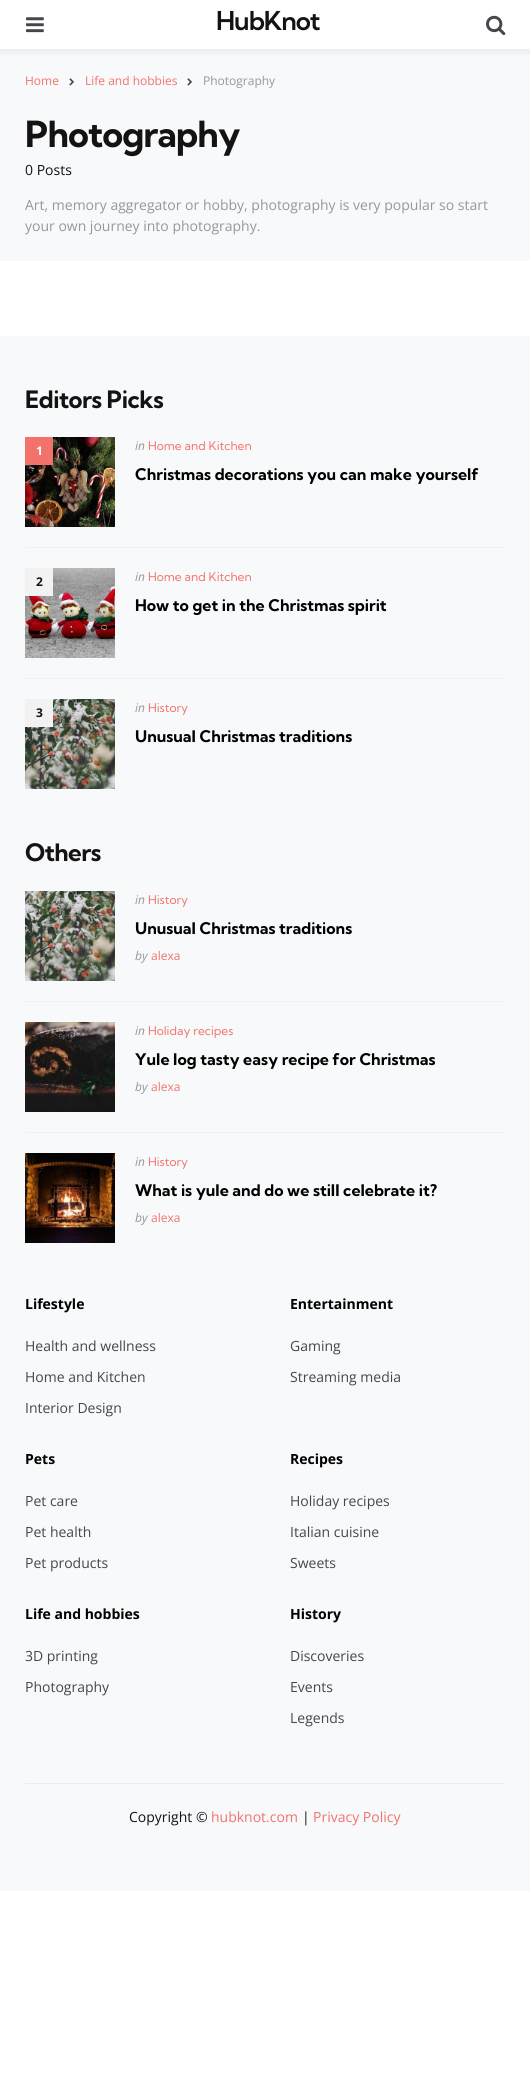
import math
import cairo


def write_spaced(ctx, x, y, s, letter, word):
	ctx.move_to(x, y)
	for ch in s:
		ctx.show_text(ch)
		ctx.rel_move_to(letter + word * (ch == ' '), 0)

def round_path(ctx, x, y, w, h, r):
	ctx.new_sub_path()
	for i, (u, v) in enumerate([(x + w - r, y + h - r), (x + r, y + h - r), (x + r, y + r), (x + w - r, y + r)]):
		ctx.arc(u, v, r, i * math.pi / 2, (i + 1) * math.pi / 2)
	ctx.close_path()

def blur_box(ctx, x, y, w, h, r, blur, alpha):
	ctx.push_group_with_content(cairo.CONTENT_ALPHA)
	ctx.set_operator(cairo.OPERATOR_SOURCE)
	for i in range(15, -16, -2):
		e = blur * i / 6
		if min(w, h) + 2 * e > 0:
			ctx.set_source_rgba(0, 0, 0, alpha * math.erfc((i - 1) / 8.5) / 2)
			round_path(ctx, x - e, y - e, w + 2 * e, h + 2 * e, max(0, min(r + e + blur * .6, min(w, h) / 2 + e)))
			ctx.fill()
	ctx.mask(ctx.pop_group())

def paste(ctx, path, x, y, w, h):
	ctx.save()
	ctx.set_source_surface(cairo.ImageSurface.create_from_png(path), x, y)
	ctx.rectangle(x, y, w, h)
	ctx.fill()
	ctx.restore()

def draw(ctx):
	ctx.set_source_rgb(1, 1, 1)
	ctx.paint()
	ctx.set_source_rgb(0.969, 0.973, 0.98)
	ctx.rectangle(0, 49, 530, 212)
	ctx.fill()
	ctx.save()
	ctx.rectangle(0, 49, 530, 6)
	ctx.clip()
	ctx.set_source_rgb(0, 0, 0)
	blur_box(ctx, 0, 0, 530, 49, 0, 7.5, 0.1)
	ctx.restore()
	paste(ctx, 'media/1.png', 26, 17, 18, 16)
	ctx.select_font_face('Kumbh Sans SemiBold')
	ctx.set_font_size(26)
	ctx.set_source_rgb(0.075, 0.075, 0.082)
	write_spaced(ctx, 216, 30, 'HubKnot', -1, 0)
	paste(ctx, 'media/2.png', 486, 15, 20, 21)
	ctx.select_font_face('Open Sans')
	ctx.set_font_size(12)
	ctx.set_source_rgb(0.953, 0.447, 0.424)
	ctx.move_to(25, 85)
	ctx.show_text('Home')
	paste(ctx, 'media/3.png', 69, 78, 5, 8)
	ctx.move_to(85, 85)
	ctx.show_text('Life and hobbies')
	paste(ctx, 'media/3.png', 187, 78, 5, 8)
	ctx.set_source_rgb(0.58, 0.592, 0.62)
	ctx.move_to(203, 85)
	ctx.show_text('Photography')
	ctx.select_font_face('Kumbh Sans', cairo.FONT_SLANT_NORMAL, cairo.FONT_WEIGHT_BOLD)
	ctx.set_font_size(36)
	ctx.set_source_rgb(0.075, 0.075, 0.082)
	write_spaced(ctx, 25, 147, 'Photography', -1, 0)
	ctx.select_font_face('Open Sans')
	ctx.set_font_size(14)
	ctx.move_to(25, 175)
	ctx.show_text('0 Posts')
	ctx.set_source_rgb(0.58, 0.592, 0.62)
	ctx.move_to(25, 210)
	ctx.show_text('Art, memory aggregator or hobby, photography is very popular so start')
	ctx.move_to(25, 231)
	ctx.show_text('your own journey into photography.')
	ctx.set_source_rgb(0.969, 0.973, 0.98)
	ctx.rectangle(0, 336, 530, 1555)
	ctx.fill()
	ctx.select_font_face('Kumbh Sans', cairo.FONT_SLANT_NORMAL, cairo.FONT_WEIGHT_BOLD)
	ctx.set_font_size(24)
	ctx.set_source_rgb(0.075, 0.075, 0.082)
	write_spaced(ctx, 25, 408, 'Editors Picks', -0.5, 0)
	ctx.set_source_rgb(0.949, 0.949, 0.953)
	ctx.rectangle(25, 547, 480, 1)
	ctx.fill()
	paste(ctx, 'media/4.png', 25, 437, 90, 90)
	ctx.select_font_face('Open Sans', cairo.FONT_SLANT_ITALIC)
	ctx.set_font_size(12)
	ctx.set_source_rgb(0.58, 0.592, 0.62)
	ctx.move_to(135, 450)
	ctx.show_text('in')
	ctx.select_font_face('Kumbh Sans')
	ctx.set_source_rgb(0.953, 0.447, 0.424)
	ctx.move_to(148, 450)
	ctx.show_text('Home and Kitchen')
	ctx.select_font_face('Kumbh Sans', cairo.FONT_SLANT_NORMAL, cairo.FONT_WEIGHT_BOLD)
	ctx.set_font_size(16)
	ctx.set_source_rgb(0, 0, 0)
	ctx.move_to(135, 480)
	ctx.show_text('Christmas decorations you can make yourself')
	ctx.set_source_rgb(0.953, 0.447, 0.424)
	ctx.rectangle(25, 437, 28, 28)
	ctx.fill()
	ctx.select_font_face('Open Sans', cairo.FONT_SLANT_NORMAL, cairo.FONT_WEIGHT_BOLD)
	ctx.set_font_size(12)
	ctx.set_source_rgb(1, 1, 1)
	ctx.move_to(36, 455)
	ctx.show_text('1')
	ctx.set_source_rgb(0.949, 0.949, 0.953)
	ctx.rectangle(25, 678, 480, 1)
	ctx.fill()
	paste(ctx, 'media/5.png', 25, 568, 90, 90)
	ctx.select_font_face('Open Sans', cairo.FONT_SLANT_ITALIC)
	ctx.set_source_rgb(0.58, 0.592, 0.62)
	ctx.move_to(135, 581)
	ctx.show_text('in')
	ctx.select_font_face('Kumbh Sans')
	ctx.set_source_rgb(0.953, 0.447, 0.424)
	ctx.move_to(148, 581)
	ctx.show_text('Home and Kitchen')
	ctx.select_font_face('Kumbh Sans', cairo.FONT_SLANT_NORMAL, cairo.FONT_WEIGHT_BOLD)
	ctx.set_font_size(16)
	ctx.set_source_rgb(0, 0, 0)
	ctx.move_to(135, 611)
	ctx.show_text('How to get in the Christmas spirit')
	ctx.set_source_rgb(0.949, 0.949, 0.953)
	ctx.rectangle(25, 568, 28, 28)
	ctx.fill()
	ctx.select_font_face('Open Sans', cairo.FONT_SLANT_NORMAL, cairo.FONT_WEIGHT_BOLD)
	ctx.set_font_size(12)
	ctx.set_source_rgb(0.075, 0.075, 0.082)
	ctx.move_to(36, 586)
	ctx.show_text('2')
	paste(ctx, 'media/6.png', 25, 699, 90, 90)
	ctx.select_font_face('Open Sans', cairo.FONT_SLANT_ITALIC)
	ctx.set_source_rgb(0.58, 0.592, 0.62)
	ctx.move_to(135, 712)
	ctx.show_text('in')
	ctx.select_font_face('Kumbh Sans')
	ctx.set_source_rgb(0.953, 0.447, 0.424)
	ctx.move_to(148, 712)
	ctx.show_text('History')
	ctx.select_font_face('Kumbh Sans', cairo.FONT_SLANT_NORMAL, cairo.FONT_WEIGHT_BOLD)
	ctx.set_font_size(16)
	ctx.set_source_rgb(0, 0, 0)
	ctx.move_to(135, 742)
	ctx.show_text('Unusual Christmas traditions')
	ctx.set_source_rgb(0.949, 0.949, 0.953)
	ctx.rectangle(25, 699, 28, 28)
	ctx.fill()
	ctx.select_font_face('Open Sans', cairo.FONT_SLANT_NORMAL, cairo.FONT_WEIGHT_BOLD)
	ctx.set_font_size(12)
	ctx.set_source_rgb(0.075, 0.075, 0.082)
	ctx.move_to(36, 717)
	ctx.show_text('3')
	ctx.select_font_face('Kumbh Sans', cairo.FONT_SLANT_NORMAL, cairo.FONT_WEIGHT_BOLD)
	ctx.set_font_size(24)
	write_spaced(ctx, 25, 861, 'Others', -0.5, 0)
	ctx.set_source_rgb(0.949, 0.949, 0.953)
	ctx.rectangle(25, 1001, 480, 1)
	ctx.fill()
	paste(ctx, 'media/6.png', 25, 891, 90, 90)
	ctx.select_font_face('Open Sans', cairo.FONT_SLANT_ITALIC)
	ctx.set_font_size(12)
	ctx.set_source_rgb(0.58, 0.592, 0.62)
	ctx.move_to(135, 904)
	ctx.show_text('in')
	ctx.select_font_face('Kumbh Sans')
	ctx.set_source_rgb(0.953, 0.447, 0.424)
	ctx.move_to(148, 904)
	ctx.show_text('History')
	ctx.select_font_face('Kumbh Sans', cairo.FONT_SLANT_NORMAL, cairo.FONT_WEIGHT_BOLD)
	ctx.set_font_size(16)
	ctx.set_source_rgb(0, 0, 0)
	ctx.move_to(135, 934)
	ctx.show_text('Unusual Christmas traditions')
	ctx.select_font_face('Open Sans', cairo.FONT_SLANT_ITALIC)
	ctx.set_font_size(12)
	ctx.set_source_rgb(0.58, 0.592, 0.62)
	ctx.move_to(135, 960)
	ctx.show_text('by')
	ctx.select_font_face('Open Sans')
	ctx.set_source_rgb(0.953, 0.447, 0.424)
	ctx.move_to(151, 960)
	ctx.show_text('alexa')
	ctx.set_source_rgb(0.949, 0.949, 0.953)
	ctx.rectangle(25, 1132, 480, 1)
	ctx.fill()
	paste(ctx, 'media/7.png', 25, 1022, 90, 90)
	ctx.select_font_face('Open Sans', cairo.FONT_SLANT_ITALIC)
	ctx.set_source_rgb(0.58, 0.592, 0.62)
	ctx.move_to(135, 1035)
	ctx.show_text('in')
	ctx.select_font_face('Kumbh Sans')
	ctx.set_source_rgb(0.953, 0.447, 0.424)
	ctx.move_to(148, 1035)
	ctx.show_text('Holiday recipes')
	ctx.select_font_face('Kumbh Sans', cairo.FONT_SLANT_NORMAL, cairo.FONT_WEIGHT_BOLD)
	ctx.set_font_size(16)
	ctx.set_source_rgb(0, 0, 0)
	ctx.move_to(135, 1065)
	ctx.show_text('Yule log tasty easy recipe for Christmas')
	ctx.select_font_face('Open Sans', cairo.FONT_SLANT_ITALIC)
	ctx.set_font_size(12)
	ctx.set_source_rgb(0.58, 0.592, 0.62)
	ctx.move_to(135, 1091)
	ctx.show_text('by')
	ctx.select_font_face('Open Sans')
	ctx.set_source_rgb(0.953, 0.447, 0.424)
	ctx.move_to(151, 1091)
	ctx.show_text('alexa')
	paste(ctx, 'media/8.png', 25, 1153, 90, 90)
	ctx.select_font_face('Open Sans', cairo.FONT_SLANT_ITALIC)
	ctx.set_source_rgb(0.58, 0.592, 0.62)
	ctx.move_to(135, 1166)
	ctx.show_text('in')
	ctx.select_font_face('Kumbh Sans')
	ctx.set_source_rgb(0.953, 0.447, 0.424)
	ctx.move_to(148, 1166)
	ctx.show_text('History')
	ctx.select_font_face('Kumbh Sans', cairo.FONT_SLANT_NORMAL, cairo.FONT_WEIGHT_BOLD)
	ctx.set_font_size(16)
	ctx.set_source_rgb(0, 0, 0)
	ctx.move_to(135, 1196)
	ctx.show_text('What is yule and do we still celebrate it?')
	ctx.select_font_face('Open Sans', cairo.FONT_SLANT_ITALIC)
	ctx.set_font_size(12)
	ctx.set_source_rgb(0.58, 0.592, 0.62)
	ctx.move_to(135, 1222)
	ctx.show_text('by')
	ctx.select_font_face('Open Sans')
	ctx.set_source_rgb(0.953, 0.447, 0.424)
	ctx.move_to(151, 1222)
	ctx.show_text('alexa')
	ctx.select_font_face('Open Sans', cairo.FONT_SLANT_NORMAL, cairo.FONT_WEIGHT_BOLD)
	ctx.set_font_size(14)
	ctx.set_source_rgb(0, 0, 0)
	ctx.move_to(25, 1309)
	ctx.show_text('Lifestyle')
	ctx.select_font_face('Open Sans')
	ctx.set_source_rgb(0.267, 0.275, 0.294)
	for x, y, s in [
		(25, 1351, 'Health and wellness'),
		(25, 1382, 'Home and Kitchen'),
		(25, 1413, 'Interior Design'),
	]:
		ctx.move_to(x, y)
		ctx.show_text(s)
	ctx.select_font_face('Open Sans', cairo.FONT_SLANT_NORMAL, cairo.FONT_WEIGHT_BOLD)
	ctx.set_source_rgb(0, 0, 0)
	ctx.move_to(290, 1309)
	ctx.show_text('Entertainment')
	ctx.select_font_face('Open Sans')
	ctx.set_source_rgb(0.267, 0.275, 0.294)
	ctx.move_to(290, 1351)
	ctx.show_text('Gaming')
	ctx.move_to(290, 1382)
	ctx.show_text('Streaming media')
	ctx.select_font_face('Open Sans', cairo.FONT_SLANT_NORMAL, cairo.FONT_WEIGHT_BOLD)
	ctx.set_source_rgb(0, 0, 0)
	ctx.move_to(25, 1464)
	ctx.show_text('Pets')
	ctx.select_font_face('Open Sans')
	ctx.set_source_rgb(0.267, 0.275, 0.294)
	for x, y, s in [
		(25, 1506, 'Pet care'),
		(25, 1537, 'Pet health'),
		(25, 1568, 'Pet products'),
	]:
		ctx.move_to(x, y)
		ctx.show_text(s)
	ctx.select_font_face('Open Sans', cairo.FONT_SLANT_NORMAL, cairo.FONT_WEIGHT_BOLD)
	ctx.set_source_rgb(0, 0, 0)
	ctx.move_to(290, 1464)
	ctx.show_text('Recipes')
	ctx.select_font_face('Open Sans')
	ctx.set_source_rgb(0.267, 0.275, 0.294)
	for x, y, s in [
		(290, 1506, 'Holiday recipes'),
		(290, 1537, 'Italian cuisine'),
		(290, 1568, 'Sweets'),
	]:
		ctx.move_to(x, y)
		ctx.show_text(s)
	ctx.select_font_face('Open Sans', cairo.FONT_SLANT_NORMAL, cairo.FONT_WEIGHT_BOLD)
	ctx.set_source_rgb(0, 0, 0)
	ctx.move_to(25, 1619)
	ctx.show_text('Life and hobbies')
	ctx.select_font_face('Open Sans')
	ctx.set_source_rgb(0.267, 0.275, 0.294)
	ctx.move_to(25, 1661)
	ctx.show_text('3D printing')
	ctx.move_to(25, 1692)
	ctx.show_text('Photography')
	ctx.select_font_face('Open Sans', cairo.FONT_SLANT_NORMAL, cairo.FONT_WEIGHT_BOLD)
	ctx.set_source_rgb(0, 0, 0)
	ctx.move_to(290, 1619)
	ctx.show_text('History')
	ctx.select_font_face('Open Sans')
	ctx.set_source_rgb(0.267, 0.275, 0.294)
	for x, y, s in [
		(290, 1661, 'Discoveries'),
		(290, 1692, 'Events'),
		(290, 1723, 'Legends'),
	]:
		ctx.move_to(x, y)
		ctx.show_text(s)
	ctx.set_source_rgb(0.922, 0.922, 0.922)
	ctx.rectangle(25, 1783, 480, 1)
	ctx.fill()
	ctx.set_source_rgb(0.075, 0.075, 0.082)
	ctx.move_to(129, 1822)
	ctx.show_text('Copyright ©')
	ctx.set_source_rgb(0.953, 0.447, 0.424)
	ctx.move_to(211, 1822)
	ctx.show_text('hubknot.com')
	ctx.set_source_rgb(0.075, 0.075, 0.082)
	ctx.move_to(302, 1822)
	ctx.show_text('|')
	ctx.set_source_rgb(0.953, 0.447, 0.424)
	ctx.move_to(313, 1822)
	ctx.show_text('Privacy Policy')


surface = cairo.ImageSurface(cairo.FORMAT_RGB24, 530, 2095)
ctx = cairo.Context(surface)
options = cairo.FontOptions()
options.set_hint_metrics(cairo.HINT_METRICS_OFF)
options.set_hint_style(cairo.HINT_STYLE_NONE)
ctx.set_font_options(options)
ctx.set_miter_limit(4)
draw(ctx)
surface.write_to_png('image.png')
